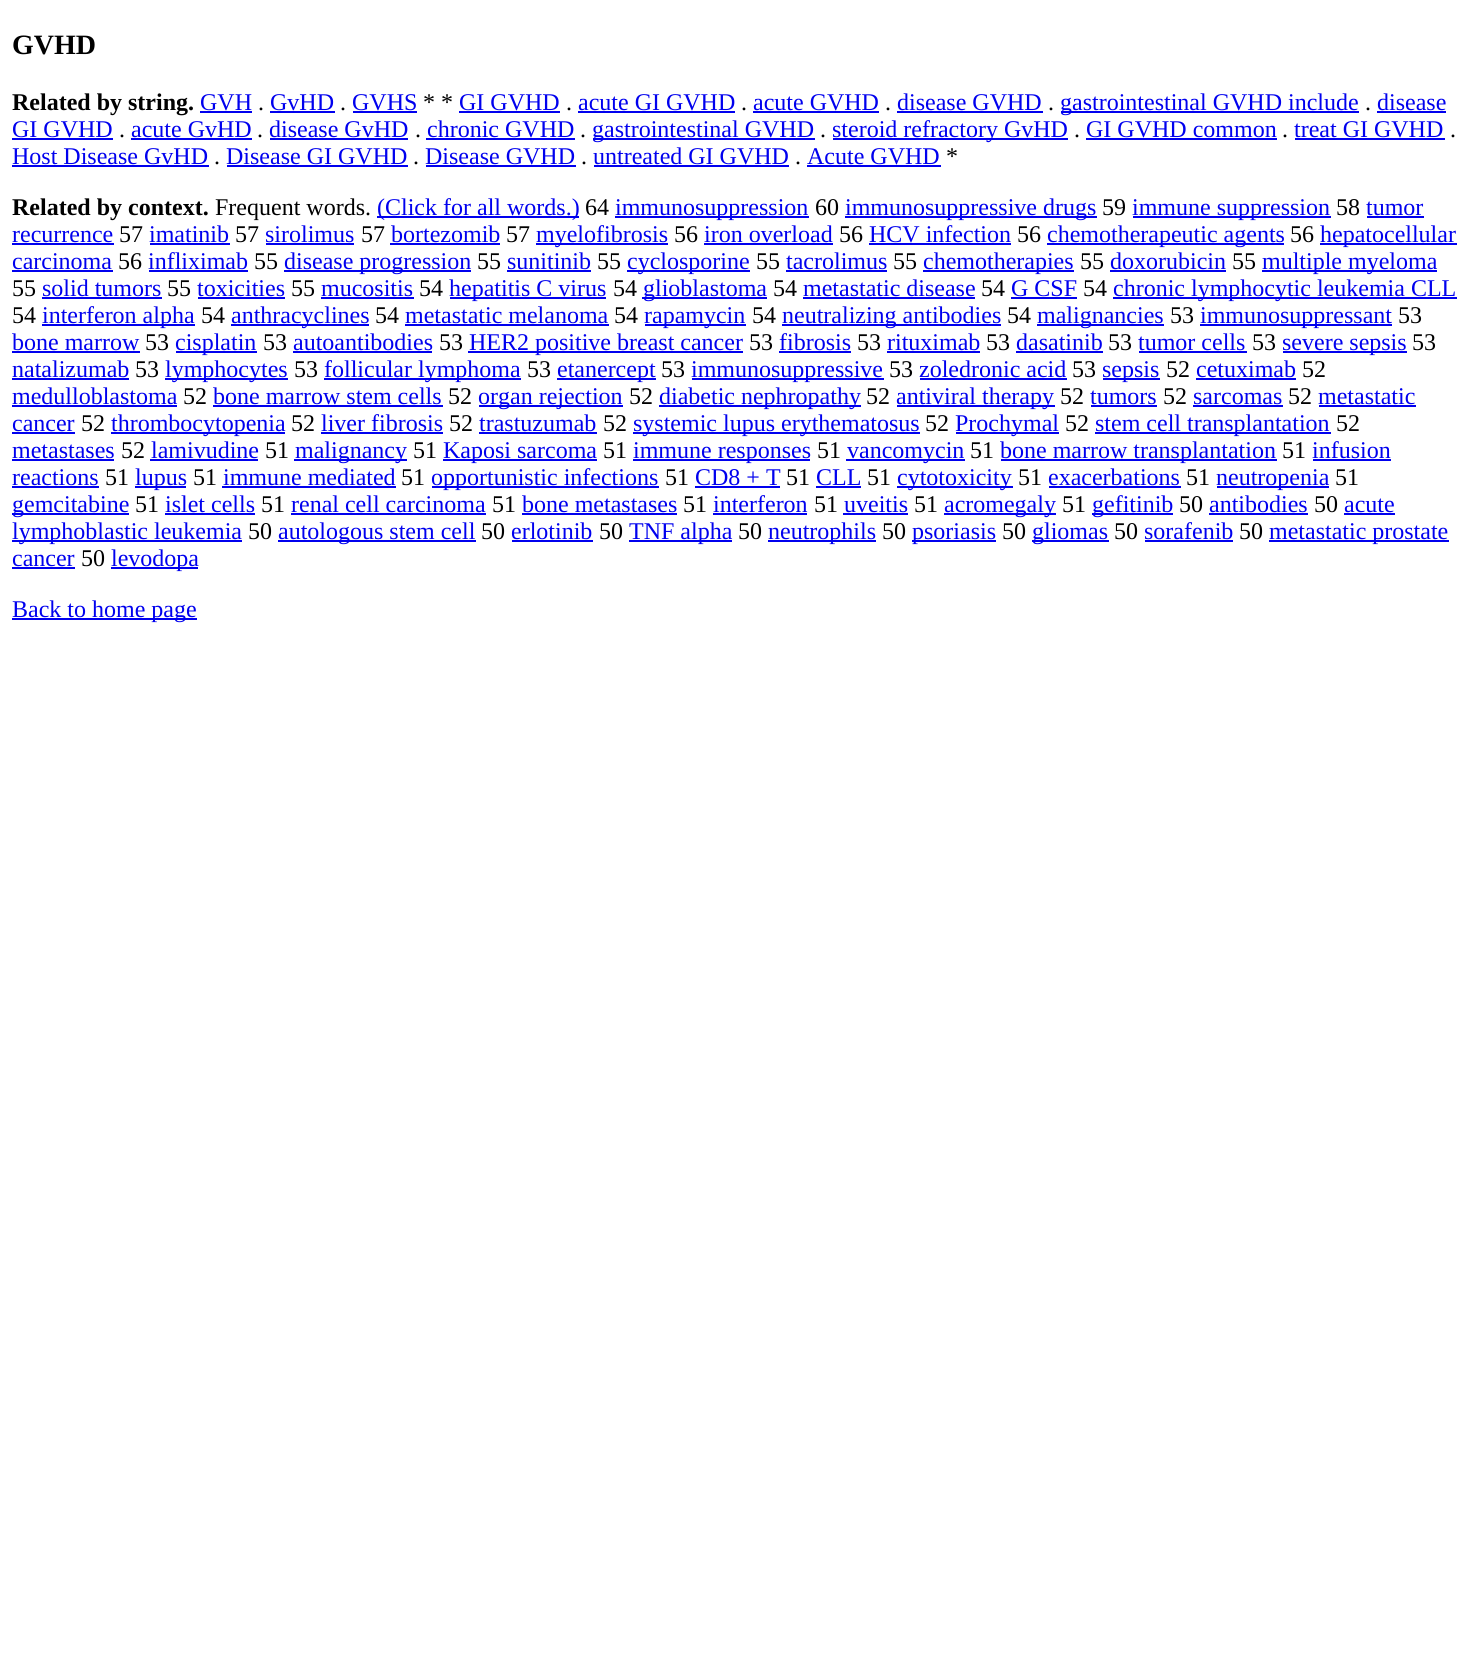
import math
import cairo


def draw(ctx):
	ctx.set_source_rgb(1, 1, 1)
	ctx.paint()
	ctx.select_font_face('Liberation Serif', cairo.FONT_SLANT_NORMAL, cairo.FONT_WEIGHT_BOLD)
	ctx.set_font_size(28)
	ctx.set_source_rgb(0, 0, 0)
	ctx.move_to(12, 54)
	ctx.show_text('GVHD')
	ctx.set_font_size(24)
	ctx.move_to(12, 110)
	ctx.show_text('Related by string.')
	ctx.select_font_face('Liberation Serif')
	ctx.set_source_rgb(0, 0, 0.933)
	ctx.move_to(200, 110)
	ctx.show_text('GVH')
	ctx.rectangle(200, 111, 52, 2)
	ctx.fill()
	ctx.set_source_rgb(0, 0, 0)
	ctx.move_to(258, 110)
	ctx.show_text('.')
	ctx.set_source_rgb(0, 0, 0.933)
	ctx.move_to(270, 110)
	ctx.show_text('GvHD')
	ctx.rectangle(270, 111, 65, 2)
	ctx.fill()
	ctx.set_source_rgb(0, 0, 0)
	ctx.move_to(340, 110)
	ctx.show_text('.')
	ctx.set_source_rgb(0, 0, 0.933)
	ctx.move_to(352, 110)
	ctx.show_text('GVHS')
	ctx.rectangle(353, 111, 64, 2)
	ctx.fill()
	ctx.set_source_rgb(0, 0, 0)
	ctx.move_to(423, 110)
	ctx.show_text('* *')
	ctx.set_source_rgb(0, 0, 0.933)
	ctx.move_to(459, 110)
	ctx.show_text('GI GVHD')
	ctx.rectangle(459, 111, 101, 2)
	ctx.fill()
	ctx.set_source_rgb(0, 0, 0)
	ctx.move_to(566, 110)
	ctx.show_text('.')
	ctx.set_source_rgb(0, 0, 0.933)
	ctx.move_to(578, 110)
	ctx.show_text('acute GI GVHD')
	ctx.rectangle(578, 111, 157, 2)
	ctx.fill()
	ctx.set_source_rgb(0, 0, 0)
	ctx.move_to(741, 110)
	ctx.show_text('.')
	ctx.set_source_rgb(0, 0, 0.933)
	ctx.move_to(753, 110)
	ctx.show_text('acute GVHD')
	ctx.rectangle(753, 111, 126, 2)
	ctx.fill()
	ctx.set_source_rgb(0, 0, 0)
	ctx.move_to(885, 110)
	ctx.show_text('.')
	ctx.set_source_rgb(0, 0, 0.933)
	ctx.move_to(897, 110)
	ctx.show_text('disease GVHD')
	ctx.rectangle(897, 111, 146, 2)
	ctx.fill()
	ctx.set_source_rgb(0, 0, 0)
	ctx.move_to(1048, 110)
	ctx.show_text('.')
	ctx.set_source_rgb(0, 0, 0.933)
	ctx.rectangle(1061, 111, 298, 2)
	ctx.fill()
	ctx.move_to(1060, 110)
	ctx.show_text('gastrointestinal GVHD include')
	ctx.set_source_rgb(0, 0, 0)
	ctx.move_to(1365, 110)
	ctx.show_text('.')
	ctx.set_source_rgb(0, 0, 0.933)
	ctx.move_to(1377, 110)
	ctx.show_text('disease')
	ctx.rectangle(1377, 111, 69, 2)
	ctx.fill()
	ctx.move_to(12, 137)
	ctx.show_text('GI GVHD')
	ctx.rectangle(12, 138, 101, 2)
	ctx.fill()
	ctx.set_source_rgb(0, 0, 0)
	ctx.move_to(119, 137)
	ctx.show_text('.')
	ctx.set_source_rgb(0, 0, 0.933)
	ctx.move_to(131, 137)
	ctx.show_text('acute GvHD')
	ctx.rectangle(131, 138, 121, 2)
	ctx.fill()
	ctx.set_source_rgb(0, 0, 0)
	ctx.move_to(257, 137)
	ctx.show_text('.')
	ctx.set_source_rgb(0, 0, 0.933)
	ctx.move_to(269, 137)
	ctx.show_text('disease GvHD')
	ctx.rectangle(270, 138, 138, 2)
	ctx.fill()
	ctx.set_source_rgb(0, 0, 0)
	ctx.move_to(415, 137)
	ctx.show_text('.')
	ctx.set_source_rgb(0, 0, 0.933)
	ctx.move_to(427, 137)
	ctx.show_text('chronic GVHD')
	ctx.rectangle(426, 138, 149, 2)
	ctx.fill()
	ctx.set_source_rgb(0, 0, 0)
	ctx.move_to(580, 137)
	ctx.show_text('.')
	ctx.set_source_rgb(0, 0, 0.933)
	ctx.rectangle(593, 138, 222, 2)
	ctx.fill()
	ctx.move_to(592, 137)
	ctx.show_text('gastrointestinal GVHD')
	ctx.set_source_rgb(0, 0, 0)
	ctx.move_to(820, 137)
	ctx.show_text('.')
	ctx.set_source_rgb(0, 0, 0.933)
	ctx.rectangle(833, 138, 235, 2)
	ctx.fill()
	ctx.move_to(832, 137)
	ctx.show_text('steroid refractory GvHD')
	ctx.set_source_rgb(0, 0, 0)
	ctx.move_to(1074, 137)
	ctx.show_text('.')
	ctx.set_source_rgb(0, 0, 0.933)
	ctx.move_to(1086, 137)
	ctx.show_text('GI GVHD common')
	ctx.rectangle(1086, 138, 191, 2)
	ctx.fill()
	ctx.set_source_rgb(0, 0, 0)
	ctx.move_to(1282, 137)
	ctx.show_text('.')
	ctx.set_source_rgb(0, 0, 0.933)
	ctx.move_to(1294, 137)
	ctx.show_text('treat GI GVHD')
	ctx.rectangle(1295, 138, 150, 2)
	ctx.fill()
	ctx.set_source_rgb(0, 0, 0)
	ctx.move_to(1450, 137)
	ctx.show_text('.')
	ctx.set_source_rgb(0, 0, 0.933)
	ctx.move_to(12, 164)
	ctx.show_text('Host Disease GvHD')
	ctx.rectangle(12, 165, 197, 2)
	ctx.fill()
	ctx.move_to(226, 164)
	ctx.show_text('Disease GI GVHD')
	ctx.rectangle(227, 165, 181, 2)
	ctx.fill()
	ctx.move_to(425, 164)
	ctx.show_text('Disease GVHD')
	ctx.rectangle(426, 165, 150, 2)
	ctx.fill()
	ctx.move_to(593, 164)
	ctx.show_text('untreated GI GVHD')
	ctx.rectangle(594, 165, 195, 2)
	ctx.fill()
	ctx.move_to(807, 164)
	ctx.show_text('Acute GVHD')
	ctx.rectangle(807, 165, 134, 2)
	ctx.fill()
	ctx.set_source_rgb(0, 0, 0)
	for x, y, s in [
		(946, 164, '*'),
		(214, 164, '.'),
		(413, 164, '.'),
		(581, 164, '.'),
		(795, 164, '.'),
	]:
		ctx.move_to(x, y)
		ctx.show_text(s)
	ctx.select_font_face('Liberation Serif', cairo.FONT_SLANT_NORMAL, cairo.FONT_WEIGHT_BOLD)
	ctx.move_to(12, 215)
	ctx.show_text('Related by context.')
	ctx.select_font_face('Liberation Serif')
	ctx.move_to(215, 215)
	ctx.show_text('Frequent words.')
	ctx.set_source_rgb(0, 0, 0.933)
	ctx.rectangle(377, 216, 202, 2)
	ctx.fill()
	ctx.move_to(377, 215)
	ctx.show_text('(Click for all words.)')
	ctx.set_source_rgb(0, 0, 0)
	ctx.move_to(585, 215)
	ctx.show_text('64')
	ctx.set_source_rgb(0, 0, 0.933)
	ctx.rectangle(615, 216, 194, 2)
	ctx.fill()
	ctx.move_to(615, 215)
	ctx.show_text('immunosuppression')
	ctx.set_source_rgb(0, 0, 0)
	ctx.move_to(815, 215)
	ctx.show_text('60')
	ctx.set_source_rgb(0, 0, 0.933)
	ctx.rectangle(845, 216, 252, 2)
	ctx.fill()
	ctx.move_to(845, 215)
	ctx.show_text('immunosuppressive drugs')
	ctx.set_source_rgb(0, 0, 0)
	ctx.move_to(1102, 215)
	ctx.show_text('59')
	ctx.set_source_rgb(0, 0, 0.933)
	ctx.rectangle(1133, 216, 198, 2)
	ctx.fill()
	ctx.move_to(1132, 215)
	ctx.show_text('immune suppression')
	ctx.set_source_rgb(0, 0, 0)
	ctx.move_to(1336, 215)
	ctx.show_text('58')
	ctx.set_source_rgb(0, 0, 0.933)
	ctx.move_to(1366, 215)
	ctx.show_text('tumor')
	ctx.rectangle(1367, 216, 57, 2)
	ctx.fill()
	ctx.move_to(12, 242)
	ctx.show_text('recurrence')
	ctx.rectangle(12, 243, 102, 2)
	ctx.fill()
	ctx.set_source_rgb(0, 0, 0)
	ctx.move_to(119, 242)
	ctx.show_text('57')
	ctx.set_source_rgb(0, 0, 0.933)
	ctx.move_to(149, 242)
	ctx.show_text('imatinib')
	ctx.rectangle(150, 243, 80, 2)
	ctx.fill()
	ctx.set_source_rgb(0, 0, 0)
	ctx.move_to(235, 242)
	ctx.show_text('57')
	ctx.set_source_rgb(0, 0, 0.933)
	ctx.move_to(265, 242)
	ctx.show_text('sirolimus')
	ctx.rectangle(266, 243, 88, 2)
	ctx.fill()
	ctx.set_source_rgb(0, 0, 0)
	ctx.move_to(361, 242)
	ctx.show_text('57')
	ctx.set_source_rgb(0, 0, 0.933)
	ctx.move_to(391, 242)
	ctx.show_text('bortezomib')
	ctx.rectangle(390, 243, 110, 2)
	ctx.fill()
	ctx.set_source_rgb(0, 0, 0)
	ctx.move_to(506, 242)
	ctx.show_text('57')
	ctx.set_source_rgb(0, 0, 0.933)
	ctx.rectangle(536, 243, 132, 2)
	ctx.fill()
	ctx.move_to(536, 242)
	ctx.show_text('myelofibrosis')
	ctx.set_source_rgb(0, 0, 0)
	ctx.move_to(674, 242)
	ctx.show_text('56')
	ctx.set_source_rgb(0, 0, 0.933)
	ctx.move_to(704, 242)
	ctx.show_text('iron overload')
	ctx.rectangle(704, 243, 129, 2)
	ctx.fill()
	ctx.set_source_rgb(0, 0, 0)
	ctx.move_to(839, 242)
	ctx.show_text('56')
	ctx.set_source_rgb(0, 0, 0.933)
	ctx.move_to(869, 242)
	ctx.show_text('HCV infection')
	ctx.rectangle(869, 243, 142, 2)
	ctx.fill()
	ctx.set_source_rgb(0, 0, 0)
	ctx.move_to(1017, 242)
	ctx.show_text('56')
	ctx.set_source_rgb(0, 0, 0.933)
	ctx.rectangle(1047, 243, 237, 2)
	ctx.fill()
	ctx.move_to(1047, 242)
	ctx.show_text('chemotherapeutic agents')
	ctx.set_source_rgb(0, 0, 0)
	ctx.move_to(1290, 242)
	ctx.show_text('56')
	ctx.set_source_rgb(0, 0, 0.933)
	ctx.rectangle(1320, 243, 137, 2)
	ctx.fill()
	ctx.move_to(1320, 242)
	ctx.show_text('hepatocellular')
	ctx.move_to(12, 269)
	ctx.show_text('carcinoma')
	ctx.rectangle(12, 270, 101, 2)
	ctx.fill()
	ctx.set_source_rgb(0, 0, 0)
	ctx.move_to(118, 269)
	ctx.show_text('56')
	ctx.set_source_rgb(0, 0, 0.933)
	ctx.move_to(148, 269)
	ctx.show_text('infliximab')
	ctx.rectangle(149, 270, 99, 2)
	ctx.fill()
	ctx.set_source_rgb(0, 0, 0)
	ctx.move_to(254, 269)
	ctx.show_text('55')
	ctx.set_source_rgb(0, 0, 0.933)
	ctx.rectangle(284, 270, 187, 2)
	ctx.fill()
	ctx.move_to(284, 269)
	ctx.show_text('disease progression')
	ctx.set_source_rgb(0, 0, 0)
	ctx.move_to(477, 269)
	ctx.show_text('55')
	ctx.set_source_rgb(0, 0, 0.933)
	ctx.move_to(507, 269)
	ctx.show_text('sunitinib')
	ctx.rectangle(507, 270, 84, 2)
	ctx.fill()
	ctx.set_source_rgb(0, 0, 0)
	ctx.move_to(597, 269)
	ctx.show_text('55')
	ctx.set_source_rgb(0, 0, 0.933)
	ctx.rectangle(627, 270, 123, 2)
	ctx.fill()
	ctx.move_to(627, 269)
	ctx.show_text('cyclosporine')
	ctx.set_source_rgb(0, 0, 0)
	ctx.move_to(756, 269)
	ctx.show_text('55')
	ctx.set_source_rgb(0, 0, 0.933)
	ctx.move_to(786, 269)
	ctx.show_text('tacrolimus')
	ctx.rectangle(786, 270, 101, 2)
	ctx.fill()
	ctx.set_source_rgb(0, 0, 0)
	ctx.move_to(893, 269)
	ctx.show_text('55')
	ctx.set_source_rgb(0, 0, 0.933)
	ctx.rectangle(923, 270, 151, 2)
	ctx.fill()
	ctx.move_to(923, 269)
	ctx.show_text('chemotherapies')
	ctx.set_source_rgb(0, 0, 0)
	ctx.move_to(1080, 269)
	ctx.show_text('55')
	ctx.set_source_rgb(0, 0, 0.933)
	ctx.move_to(1110, 269)
	ctx.show_text('doxorubicin')
	ctx.rectangle(1110, 270, 116, 2)
	ctx.fill()
	ctx.set_source_rgb(0, 0, 0)
	ctx.move_to(1232, 269)
	ctx.show_text('55')
	ctx.set_source_rgb(0, 0, 0.933)
	ctx.rectangle(1262, 270, 175, 2)
	ctx.fill()
	ctx.move_to(1262, 269)
	ctx.show_text('multiple myeloma')
	ctx.set_source_rgb(0, 0, 0)
	ctx.move_to(12, 296)
	ctx.show_text('55')
	ctx.set_source_rgb(0, 0, 0.933)
	ctx.move_to(42, 296)
	ctx.show_text('solid tumors')
	ctx.rectangle(42, 297, 120, 2)
	ctx.fill()
	ctx.set_source_rgb(0, 0, 0)
	ctx.move_to(167, 296)
	ctx.show_text('55')
	ctx.set_source_rgb(0, 0, 0.933)
	ctx.move_to(197, 296)
	ctx.show_text('toxicities')
	ctx.rectangle(198, 297, 87, 2)
	ctx.fill()
	ctx.set_source_rgb(0, 0, 0)
	ctx.move_to(291, 296)
	ctx.show_text('55')
	ctx.set_source_rgb(0, 0, 0.933)
	ctx.move_to(321, 296)
	ctx.show_text('mucositis')
	ctx.rectangle(321, 297, 93, 2)
	ctx.fill()
	ctx.set_source_rgb(0, 0, 0)
	ctx.move_to(419, 296)
	ctx.show_text('54')
	ctx.set_source_rgb(0, 0, 0.933)
	ctx.rectangle(450, 297, 156, 2)
	ctx.fill()
	ctx.move_to(449, 296)
	ctx.show_text('hepatitis C virus')
	ctx.set_source_rgb(0, 0, 0)
	ctx.move_to(613, 296)
	ctx.show_text('54')
	ctx.set_source_rgb(0, 0, 0.933)
	ctx.rectangle(642, 297, 125, 2)
	ctx.fill()
	ctx.move_to(643, 296)
	ctx.show_text('glioblastoma')
	ctx.set_source_rgb(0, 0, 0)
	ctx.move_to(773, 296)
	ctx.show_text('54')
	ctx.set_source_rgb(0, 0, 0.933)
	ctx.move_to(803, 296)
	ctx.show_text('metastatic disease')
	ctx.rectangle(803, 297, 172, 2)
	ctx.fill()
	ctx.set_source_rgb(0, 0, 0)
	ctx.move_to(981, 296)
	ctx.show_text('54')
	ctx.set_source_rgb(0, 0, 0.933)
	ctx.move_to(1011, 296)
	ctx.show_text('G CSF')
	ctx.rectangle(1011, 297, 66, 2)
	ctx.fill()
	ctx.set_source_rgb(0, 0, 0)
	ctx.move_to(1083, 296)
	ctx.show_text('54')
	ctx.set_source_rgb(0, 0, 0.933)
	ctx.rectangle(1113, 297, 344, 2)
	ctx.fill()
	ctx.move_to(1113, 296)
	ctx.show_text('chronic lymphocytic leukemia CLL')
	ctx.set_source_rgb(0, 0, 0)
	ctx.move_to(12, 323)
	ctx.show_text('54')
	ctx.set_source_rgb(0, 0, 0.933)
	ctx.rectangle(42, 324, 153, 2)
	ctx.fill()
	ctx.move_to(42, 323)
	ctx.show_text('interferon alpha')
	ctx.set_source_rgb(0, 0, 0)
	ctx.move_to(201, 323)
	ctx.show_text('54')
	ctx.set_source_rgb(0, 0, 0.933)
	ctx.rectangle(231, 324, 138, 2)
	ctx.fill()
	ctx.move_to(231, 323)
	ctx.show_text('anthracyclines')
	ctx.set_source_rgb(0, 0, 0)
	ctx.move_to(375, 323)
	ctx.show_text('54')
	ctx.set_source_rgb(0, 0, 0.933)
	ctx.move_to(405, 323)
	ctx.show_text('metastatic melanoma')
	ctx.rectangle(405, 324, 204, 2)
	ctx.fill()
	ctx.set_source_rgb(0, 0, 0)
	ctx.move_to(614, 323)
	ctx.show_text('54')
	ctx.set_source_rgb(0, 0, 0.933)
	ctx.rectangle(645, 324, 101, 2)
	ctx.fill()
	ctx.move_to(644, 323)
	ctx.show_text('rapamycin')
	ctx.set_source_rgb(0, 0, 0)
	ctx.move_to(752, 323)
	ctx.show_text('54')
	ctx.set_source_rgb(0, 0, 0.933)
	ctx.rectangle(782, 324, 219, 2)
	ctx.fill()
	ctx.move_to(782, 323)
	ctx.show_text('neutralizing antibodies')
	ctx.set_source_rgb(0, 0, 0)
	ctx.move_to(1007, 323)
	ctx.show_text('54')
	ctx.set_source_rgb(0, 0, 0.933)
	ctx.rectangle(1037, 324, 127, 2)
	ctx.fill()
	ctx.move_to(1037, 323)
	ctx.show_text('malignancies')
	ctx.set_source_rgb(0, 0, 0)
	ctx.move_to(1170, 323)
	ctx.show_text('53')
	ctx.set_source_rgb(0, 0, 0.933)
	ctx.rectangle(1200, 324, 192, 2)
	ctx.fill()
	ctx.move_to(1200, 323)
	ctx.show_text('immunosuppressant')
	ctx.set_source_rgb(0, 0, 0)
	ctx.move_to(1398, 323)
	ctx.show_text('53')
	ctx.set_source_rgb(0, 0, 0.933)
	ctx.move_to(12, 350)
	ctx.show_text('bone marrow')
	ctx.rectangle(12, 351, 128, 2)
	ctx.fill()
	ctx.set_source_rgb(0, 0, 0)
	ctx.move_to(145, 350)
	ctx.show_text('53')
	ctx.set_source_rgb(0, 0, 0.933)
	ctx.rectangle(176, 351, 81, 2)
	ctx.fill()
	ctx.move_to(175, 350)
	ctx.show_text('cisplatin')
	ctx.set_source_rgb(0, 0, 0)
	ctx.move_to(263, 350)
	ctx.show_text('53')
	ctx.set_source_rgb(0, 0, 0.933)
	ctx.move_to(293, 350)
	ctx.show_text('autoantibodies')
	ctx.rectangle(293, 351, 139, 2)
	ctx.fill()
	ctx.set_source_rgb(0, 0, 0)
	ctx.move_to(439, 350)
	ctx.show_text('53')
	ctx.set_source_rgb(0, 0, 0.933)
	ctx.rectangle(468, 351, 275, 2)
	ctx.fill()
	ctx.move_to(469, 350)
	ctx.show_text('HER2 positive breast cancer')
	ctx.set_source_rgb(0, 0, 0)
	ctx.move_to(749, 350)
	ctx.show_text('53')
	ctx.set_source_rgb(0, 0, 0.933)
	ctx.move_to(779, 350)
	ctx.show_text('fibrosis')
	ctx.rectangle(779, 351, 72, 2)
	ctx.fill()
	ctx.set_source_rgb(0, 0, 0)
	ctx.move_to(857, 350)
	ctx.show_text('53')
	ctx.set_source_rgb(0, 0, 0.933)
	ctx.move_to(887, 350)
	ctx.show_text('rituximab')
	ctx.rectangle(887, 351, 93, 2)
	ctx.fill()
	ctx.set_source_rgb(0, 0, 0)
	ctx.move_to(986, 350)
	ctx.show_text('53')
	ctx.set_source_rgb(0, 0, 0.933)
	ctx.move_to(1016, 350)
	ctx.show_text('dasatinib')
	ctx.rectangle(1016, 351, 87, 2)
	ctx.fill()
	ctx.set_source_rgb(0, 0, 0)
	ctx.move_to(1108, 350)
	ctx.show_text('53')
	ctx.set_source_rgb(0, 0, 0.933)
	ctx.move_to(1138, 350)
	ctx.show_text('tumor cells')
	ctx.rectangle(1139, 351, 108, 2)
	ctx.fill()
	ctx.set_source_rgb(0, 0, 0)
	ctx.move_to(1252, 350)
	ctx.show_text('53')
	ctx.set_source_rgb(0, 0, 0.933)
	ctx.rectangle(1283, 351, 124, 2)
	ctx.fill()
	ctx.move_to(1282, 350)
	ctx.show_text('severe sepsis')
	ctx.set_source_rgb(0, 0, 0)
	ctx.move_to(1412, 350)
	ctx.show_text('53')
	ctx.set_source_rgb(0, 0, 0.933)
	ctx.move_to(12, 377)
	ctx.show_text('natalizumab')
	ctx.rectangle(12, 378, 117, 2)
	ctx.fill()
	ctx.set_source_rgb(0, 0, 0)
	ctx.move_to(135, 377)
	ctx.show_text('53')
	ctx.set_source_rgb(0, 0, 0.933)
	ctx.rectangle(165, 378, 123, 2)
	ctx.fill()
	ctx.move_to(165, 377)
	ctx.show_text('lymphocytes')
	ctx.set_source_rgb(0, 0, 0)
	ctx.move_to(294, 377)
	ctx.show_text('53')
	ctx.set_source_rgb(0, 0, 0.933)
	ctx.rectangle(324, 378, 197, 2)
	ctx.fill()
	ctx.move_to(324, 377)
	ctx.show_text('follicular lymphoma')
	ctx.set_source_rgb(0, 0, 0)
	ctx.move_to(527, 377)
	ctx.show_text('53')
	ctx.set_source_rgb(0, 0, 0.933)
	ctx.rectangle(557, 378, 99, 2)
	ctx.fill()
	ctx.move_to(557, 377)
	ctx.show_text('etanercept')
	ctx.set_source_rgb(0, 0, 0)
	ctx.move_to(661, 377)
	ctx.show_text('53')
	ctx.set_source_rgb(0, 0, 0.933)
	ctx.rectangle(692, 378, 192, 2)
	ctx.fill()
	ctx.move_to(691, 377)
	ctx.show_text('immunosuppressive')
	ctx.set_source_rgb(0, 0, 0)
	ctx.move_to(889, 377)
	ctx.show_text('53')
	ctx.set_source_rgb(0, 0, 0.933)
	ctx.move_to(919, 377)
	ctx.show_text('zoledronic acid')
	ctx.rectangle(920, 378, 147, 2)
	ctx.fill()
	ctx.set_source_rgb(0, 0, 0)
	ctx.move_to(1072, 377)
	ctx.show_text('53')
	ctx.set_source_rgb(0, 0, 0.933)
	ctx.rectangle(1103, 378, 57, 2)
	ctx.fill()
	ctx.move_to(1102, 377)
	ctx.show_text('sepsis')
	ctx.set_source_rgb(0, 0, 0)
	ctx.move_to(1166, 377)
	ctx.show_text('52')
	ctx.set_source_rgb(0, 0, 0.933)
	ctx.move_to(1196, 377)
	ctx.show_text('cetuximab')
	ctx.rectangle(1196, 378, 100, 2)
	ctx.fill()
	ctx.set_source_rgb(0, 0, 0)
	ctx.move_to(1302, 377)
	ctx.show_text('52')
	ctx.set_source_rgb(0, 0, 0.933)
	ctx.move_to(12, 404)
	ctx.show_text('medulloblastoma')
	ctx.rectangle(12, 405, 165, 2)
	ctx.fill()
	ctx.set_source_rgb(0, 0, 0)
	ctx.move_to(183, 404)
	ctx.show_text('52')
	ctx.set_source_rgb(0, 0, 0.933)
	ctx.move_to(213, 404)
	ctx.show_text('bone marrow stem cells')
	ctx.rectangle(213, 405, 230, 2)
	ctx.fill()
	ctx.set_source_rgb(0, 0, 0)
	ctx.move_to(448, 404)
	ctx.show_text('52')
	ctx.set_source_rgb(0, 0, 0.933)
	ctx.rectangle(479, 405, 144, 2)
	ctx.fill()
	ctx.move_to(478, 404)
	ctx.show_text('organ rejection')
	ctx.set_source_rgb(0, 0, 0)
	ctx.move_to(629, 404)
	ctx.show_text('52')
	ctx.set_source_rgb(0, 0, 0.933)
	ctx.rectangle(659, 405, 202, 2)
	ctx.fill()
	ctx.move_to(659, 404)
	ctx.show_text('diabetic nephropathy')
	ctx.set_source_rgb(0, 0, 0)
	ctx.move_to(866, 404)
	ctx.show_text('52')
	ctx.set_source_rgb(0, 0, 0.933)
	ctx.rectangle(897, 405, 158, 2)
	ctx.fill()
	ctx.move_to(896, 404)
	ctx.show_text('antiviral therapy')
	ctx.set_source_rgb(0, 0, 0)
	ctx.move_to(1060, 404)
	ctx.show_text('52')
	ctx.set_source_rgb(0, 0, 0.933)
	ctx.move_to(1090, 404)
	ctx.show_text('tumors')
	ctx.rectangle(1091, 405, 66, 2)
	ctx.fill()
	ctx.set_source_rgb(0, 0, 0)
	ctx.move_to(1163, 404)
	ctx.show_text('52')
	ctx.set_source_rgb(0, 0, 0.933)
	ctx.move_to(1193, 404)
	ctx.show_text('sarcomas')
	ctx.rectangle(1193, 405, 90, 2)
	ctx.fill()
	ctx.set_source_rgb(0, 0, 0)
	ctx.move_to(1288, 404)
	ctx.show_text('52')
	ctx.set_source_rgb(0, 0, 0.933)
	ctx.move_to(1318, 404)
	ctx.show_text('metastatic')
	ctx.rectangle(1319, 405, 97, 2)
	ctx.fill()
	ctx.move_to(12, 431)
	ctx.show_text('cancer')
	ctx.rectangle(12, 432, 63, 2)
	ctx.fill()
	ctx.set_source_rgb(0, 0, 0)
	ctx.move_to(81, 431)
	ctx.show_text('52')
	ctx.set_source_rgb(0, 0, 0.933)
	ctx.rectangle(111, 432, 174, 2)
	ctx.fill()
	ctx.move_to(111, 431)
	ctx.show_text('thrombocytopenia')
	ctx.set_source_rgb(0, 0, 0)
	ctx.move_to(291, 431)
	ctx.show_text('52')
	ctx.set_source_rgb(0, 0, 0.933)
	ctx.move_to(321, 431)
	ctx.show_text('liver fibrosis')
	ctx.rectangle(321, 432, 122, 2)
	ctx.fill()
	ctx.set_source_rgb(0, 0, 0)
	ctx.move_to(449, 431)
	ctx.show_text('52')
	ctx.set_source_rgb(0, 0, 0.933)
	ctx.move_to(479, 431)
	ctx.show_text('trastuzumab')
	ctx.rectangle(479, 432, 118, 2)
	ctx.fill()
	ctx.set_source_rgb(0, 0, 0)
	ctx.move_to(603, 431)
	ctx.show_text('52')
	ctx.set_source_rgb(0, 0, 0.933)
	ctx.rectangle(633, 432, 287, 2)
	ctx.fill()
	ctx.move_to(633, 431)
	ctx.show_text('systemic lupus erythematosus')
	ctx.set_source_rgb(0, 0, 0)
	ctx.move_to(925, 431)
	ctx.show_text('52')
	ctx.set_source_rgb(0, 0, 0.933)
	ctx.rectangle(956, 432, 103, 2)
	ctx.fill()
	ctx.move_to(955, 431)
	ctx.show_text('Prochymal')
	ctx.set_source_rgb(0, 0, 0)
	ctx.move_to(1065, 431)
	ctx.show_text('52')
	ctx.set_source_rgb(0, 0, 0.933)
	ctx.rectangle(1095, 432, 236, 2)
	ctx.fill()
	ctx.move_to(1095, 431)
	ctx.show_text('stem cell transplantation')
	ctx.set_source_rgb(0, 0, 0)
	ctx.move_to(1336, 431)
	ctx.show_text('52')
	ctx.set_source_rgb(0, 0, 0.933)
	ctx.move_to(12, 458)
	ctx.show_text('metastases')
	ctx.rectangle(12, 459, 102, 2)
	ctx.fill()
	ctx.set_source_rgb(0, 0, 0)
	ctx.move_to(121, 458)
	ctx.show_text('52')
	ctx.set_source_rgb(0, 0, 0.933)
	ctx.move_to(151, 458)
	ctx.show_text('lamivudine')
	ctx.rectangle(150, 459, 108, 2)
	ctx.fill()
	ctx.set_source_rgb(0, 0, 0)
	ctx.move_to(265, 458)
	ctx.show_text('51')
	ctx.set_source_rgb(0, 0, 0.933)
	ctx.rectangle(294, 459, 113, 2)
	ctx.fill()
	ctx.move_to(295, 458)
	ctx.show_text('malignancy')
	ctx.set_source_rgb(0, 0, 0)
	ctx.move_to(413, 458)
	ctx.show_text('51')
	ctx.set_source_rgb(0, 0, 0.933)
	ctx.rectangle(443, 459, 154, 2)
	ctx.fill()
	ctx.move_to(443, 458)
	ctx.show_text('Kaposi sarcoma')
	ctx.set_source_rgb(0, 0, 0)
	ctx.move_to(603, 458)
	ctx.show_text('51')
	ctx.set_source_rgb(0, 0, 0.933)
	ctx.rectangle(633, 459, 177, 2)
	ctx.fill()
	ctx.move_to(633, 458)
	ctx.show_text('immune responses')
	ctx.set_source_rgb(0, 0, 0)
	ctx.move_to(817, 458)
	ctx.show_text('51')
	ctx.set_source_rgb(0, 0, 0.933)
	ctx.rectangle(846, 459, 119, 2)
	ctx.fill()
	ctx.move_to(847, 458)
	ctx.show_text('vancomycin')
	ctx.set_source_rgb(0, 0, 0)
	ctx.move_to(970, 458)
	ctx.show_text('51')
	ctx.set_source_rgb(0, 0, 0.933)
	ctx.rectangle(1001, 459, 276, 2)
	ctx.fill()
	ctx.move_to(1000, 458)
	ctx.show_text('bone marrow transplantation')
	ctx.set_source_rgb(0, 0, 0)
	ctx.move_to(1282, 458)
	ctx.show_text('51')
	ctx.set_source_rgb(0, 0, 0.933)
	ctx.move_to(1312, 458)
	ctx.show_text('infusion')
	ctx.rectangle(1313, 459, 78, 2)
	ctx.fill()
	ctx.move_to(12, 485)
	ctx.show_text('reactions')
	ctx.rectangle(12, 486, 87, 2)
	ctx.fill()
	ctx.set_source_rgb(0, 0, 0)
	ctx.move_to(105, 485)
	ctx.show_text('51')
	ctx.set_source_rgb(0, 0, 0.933)
	ctx.rectangle(135, 486, 51, 2)
	ctx.fill()
	ctx.move_to(135, 485)
	ctx.show_text('lupus')
	ctx.set_source_rgb(0, 0, 0)
	ctx.move_to(193, 485)
	ctx.show_text('51')
	ctx.set_source_rgb(0, 0, 0.933)
	ctx.move_to(223, 485)
	ctx.show_text('immune mediated')
	ctx.rectangle(222, 486, 174, 2)
	ctx.fill()
	ctx.set_source_rgb(0, 0, 0)
	ctx.move_to(401, 485)
	ctx.show_text('51')
	ctx.set_source_rgb(0, 0, 0.933)
	ctx.rectangle(432, 486, 227, 2)
	ctx.fill()
	ctx.move_to(431, 485)
	ctx.show_text('opportunistic infections')
	ctx.set_source_rgb(0, 0, 0)
	ctx.move_to(665, 485)
	ctx.show_text('51')
	ctx.set_source_rgb(0, 0, 0.933)
	ctx.move_to(695, 485)
	ctx.show_text('CD8 + T')
	ctx.rectangle(695, 486, 85, 2)
	ctx.fill()
	ctx.set_source_rgb(0, 0, 0)
	ctx.move_to(786, 485)
	ctx.show_text('51')
	ctx.set_source_rgb(0, 0, 0.933)
	ctx.move_to(816, 485)
	ctx.show_text('CLL')
	ctx.rectangle(816, 486, 45, 2)
	ctx.fill()
	ctx.set_source_rgb(0, 0, 0)
	ctx.move_to(867, 485)
	ctx.show_text('51')
	ctx.set_source_rgb(0, 0, 0.933)
	ctx.rectangle(897, 486, 116, 2)
	ctx.fill()
	ctx.move_to(897, 485)
	ctx.show_text('cytotoxicity')
	ctx.set_source_rgb(0, 0, 0)
	ctx.move_to(1018, 485)
	ctx.show_text('51')
	ctx.set_source_rgb(0, 0, 0.933)
	ctx.move_to(1048, 485)
	ctx.show_text('exacerbations')
	ctx.rectangle(1049, 486, 132, 2)
	ctx.fill()
	ctx.set_source_rgb(0, 0, 0)
	ctx.move_to(1186, 485)
	ctx.show_text('51')
	ctx.set_source_rgb(0, 0, 0.933)
	ctx.rectangle(1217, 486, 112, 2)
	ctx.fill()
	ctx.move_to(1216, 485)
	ctx.show_text('neutropenia')
	ctx.set_source_rgb(0, 0, 0)
	ctx.move_to(1335, 485)
	ctx.show_text('51')
	ctx.set_source_rgb(0, 0, 0.933)
	ctx.rectangle(12, 513, 117, 2)
	ctx.fill()
	ctx.move_to(12, 512)
	ctx.show_text('gemcitabine')
	ctx.set_source_rgb(0, 0, 0)
	ctx.move_to(135, 512)
	ctx.show_text('51')
	ctx.set_source_rgb(0, 0, 0.933)
	ctx.move_to(165, 512)
	ctx.show_text('islet cells')
	ctx.rectangle(165, 513, 90, 2)
	ctx.fill()
	ctx.set_source_rgb(0, 0, 0)
	ctx.move_to(261, 512)
	ctx.show_text('51')
	ctx.set_source_rgb(0, 0, 0.933)
	ctx.move_to(291, 512)
	ctx.show_text('renal cell carcinoma')
	ctx.rectangle(291, 513, 195, 2)
	ctx.fill()
	ctx.set_source_rgb(0, 0, 0)
	ctx.move_to(492, 512)
	ctx.show_text('51')
	ctx.set_source_rgb(0, 0, 0.933)
	ctx.move_to(522, 512)
	ctx.show_text('bone metastases')
	ctx.rectangle(522, 513, 155, 2)
	ctx.fill()
	ctx.set_source_rgb(0, 0, 0)
	ctx.move_to(683, 512)
	ctx.show_text('51')
	ctx.set_source_rgb(0, 0, 0.933)
	ctx.move_to(713, 512)
	ctx.show_text('interferon')
	ctx.rectangle(713, 513, 94, 2)
	ctx.fill()
	ctx.set_source_rgb(0, 0, 0)
	ctx.move_to(814, 512)
	ctx.show_text('51')
	ctx.set_source_rgb(0, 0, 0.933)
	ctx.move_to(844, 512)
	ctx.show_text('uveitis')
	ctx.rectangle(843, 513, 65, 2)
	ctx.fill()
	ctx.set_source_rgb(0, 0, 0)
	ctx.move_to(914, 512)
	ctx.show_text('51')
	ctx.set_source_rgb(0, 0, 0.933)
	ctx.rectangle(944, 513, 112, 2)
	ctx.fill()
	ctx.move_to(944, 512)
	ctx.show_text('acromegaly')
	ctx.set_source_rgb(0, 0, 0)
	ctx.move_to(1062, 512)
	ctx.show_text('51')
	ctx.set_source_rgb(0, 0, 0.933)
	ctx.rectangle(1092, 513, 81, 2)
	ctx.fill()
	ctx.move_to(1092, 512)
	ctx.show_text('gefitinib')
	ctx.set_source_rgb(0, 0, 0)
	ctx.move_to(1179, 512)
	ctx.show_text('50')
	ctx.set_source_rgb(0, 0, 0.933)
	ctx.move_to(1209, 512)
	ctx.show_text('antibodies')
	ctx.rectangle(1209, 513, 99, 2)
	ctx.fill()
	ctx.set_source_rgb(0, 0, 0)
	ctx.move_to(1314, 512)
	ctx.show_text('50')
	ctx.set_source_rgb(0, 0, 0.933)
	ctx.move_to(1344, 512)
	ctx.show_text('acute')
	ctx.rectangle(1344, 513, 51, 2)
	ctx.fill()
	ctx.rectangle(12, 540, 230, 2)
	ctx.fill()
	ctx.move_to(12, 539)
	ctx.show_text('lymphoblastic leukemia')
	ctx.set_source_rgb(0, 0, 0)
	ctx.move_to(248, 539)
	ctx.show_text('50')
	ctx.set_source_rgb(0, 0, 0.933)
	ctx.rectangle(278, 540, 198, 2)
	ctx.fill()
	ctx.move_to(278, 539)
	ctx.show_text('autologous stem cell')
	ctx.set_source_rgb(0, 0, 0)
	ctx.move_to(481, 539)
	ctx.show_text('50')
	ctx.set_source_rgb(0, 0, 0.933)
	ctx.move_to(511, 539)
	ctx.show_text('erlotinib')
	ctx.rectangle(512, 540, 81, 2)
	ctx.fill()
	ctx.set_source_rgb(0, 0, 0)
	ctx.move_to(599, 539)
	ctx.show_text('50')
	ctx.set_source_rgb(0, 0, 0.933)
	ctx.rectangle(629, 540, 103, 2)
	ctx.fill()
	ctx.move_to(629, 539)
	ctx.show_text('TNF alpha')
	ctx.set_source_rgb(0, 0, 0)
	ctx.move_to(738, 539)
	ctx.show_text('50')
	ctx.set_source_rgb(0, 0, 0.933)
	ctx.rectangle(768, 540, 108, 2)
	ctx.fill()
	ctx.move_to(768, 539)
	ctx.show_text('neutrophils')
	ctx.set_source_rgb(0, 0, 0)
	ctx.move_to(882, 539)
	ctx.show_text('50')
	ctx.set_source_rgb(0, 0, 0.933)
	ctx.rectangle(912, 540, 84, 2)
	ctx.fill()
	ctx.move_to(912, 539)
	ctx.show_text('psoriasis')
	ctx.set_source_rgb(0, 0, 0)
	ctx.move_to(1002, 539)
	ctx.show_text('50')
	ctx.set_source_rgb(0, 0, 0.933)
	ctx.rectangle(1032, 540, 77, 2)
	ctx.fill()
	ctx.move_to(1032, 539)
	ctx.show_text('gliomas')
	ctx.set_source_rgb(0, 0, 0)
	ctx.move_to(1114, 539)
	ctx.show_text('50')
	ctx.set_source_rgb(0, 0, 0.933)
	ctx.move_to(1144, 539)
	ctx.show_text('sorafenib')
	ctx.rectangle(1145, 540, 88, 2)
	ctx.fill()
	ctx.set_source_rgb(0, 0, 0)
	ctx.move_to(1239, 539)
	ctx.show_text('50')
	ctx.set_source_rgb(0, 0, 0.933)
	ctx.rectangle(1269, 540, 180, 2)
	ctx.fill()
	ctx.move_to(1269, 539)
	ctx.show_text('metastatic prostate')
	ctx.move_to(12, 566)
	ctx.show_text('cancer')
	ctx.rectangle(12, 567, 63, 2)
	ctx.fill()
	ctx.set_source_rgb(0, 0, 0)
	ctx.move_to(81, 566)
	ctx.show_text('50')
	ctx.set_source_rgb(0, 0, 0.933)
	ctx.rectangle(111, 567, 87, 2)
	ctx.fill()
	ctx.move_to(111, 566)
	ctx.show_text('levodopa')
	ctx.rectangle(12, 618, 185, 2)
	ctx.fill()
	ctx.move_to(12, 617)
	ctx.show_text('Back to home page')


surface = cairo.ImageSurface(cairo.FORMAT_RGB24, 1470, 1656)
ctx = cairo.Context(surface)
options = cairo.FontOptions()
options.set_hint_metrics(cairo.HINT_METRICS_OFF)
options.set_hint_style(cairo.HINT_STYLE_NONE)
ctx.set_font_options(options)
ctx.set_miter_limit(4)
draw(ctx)
surface.write_to_png('image.png')
